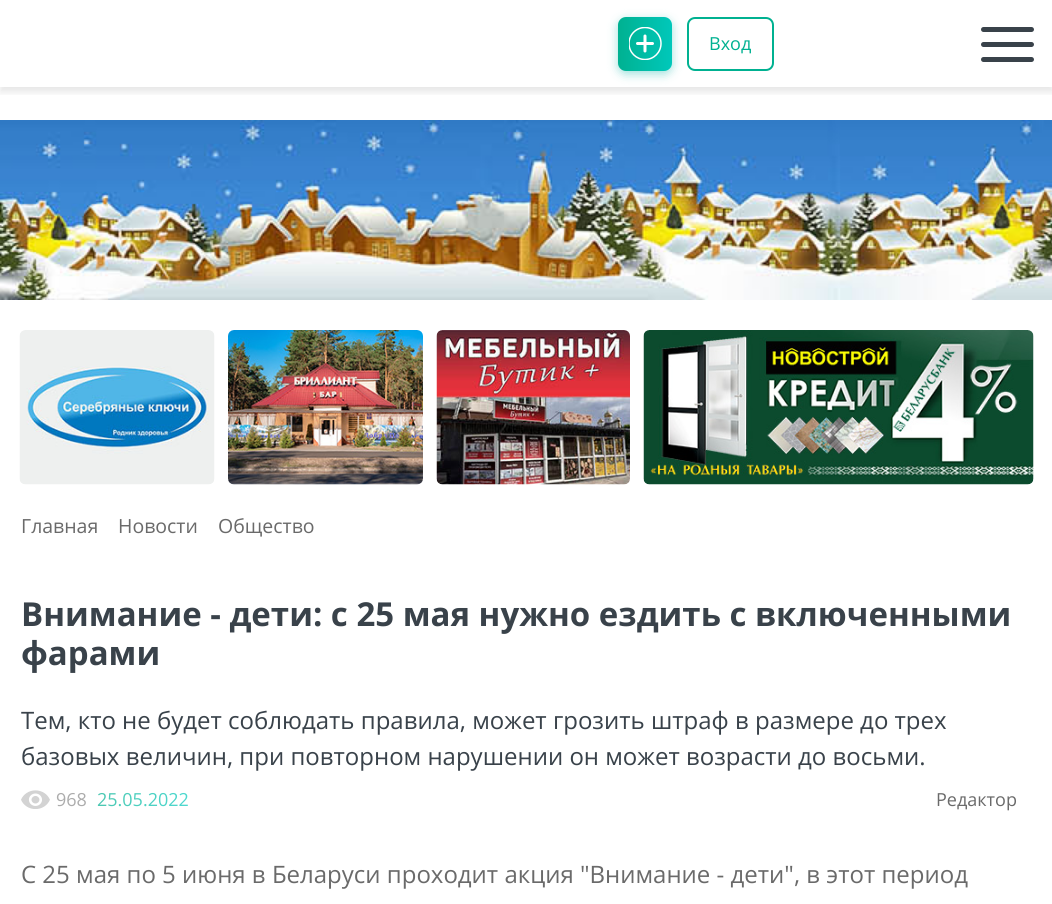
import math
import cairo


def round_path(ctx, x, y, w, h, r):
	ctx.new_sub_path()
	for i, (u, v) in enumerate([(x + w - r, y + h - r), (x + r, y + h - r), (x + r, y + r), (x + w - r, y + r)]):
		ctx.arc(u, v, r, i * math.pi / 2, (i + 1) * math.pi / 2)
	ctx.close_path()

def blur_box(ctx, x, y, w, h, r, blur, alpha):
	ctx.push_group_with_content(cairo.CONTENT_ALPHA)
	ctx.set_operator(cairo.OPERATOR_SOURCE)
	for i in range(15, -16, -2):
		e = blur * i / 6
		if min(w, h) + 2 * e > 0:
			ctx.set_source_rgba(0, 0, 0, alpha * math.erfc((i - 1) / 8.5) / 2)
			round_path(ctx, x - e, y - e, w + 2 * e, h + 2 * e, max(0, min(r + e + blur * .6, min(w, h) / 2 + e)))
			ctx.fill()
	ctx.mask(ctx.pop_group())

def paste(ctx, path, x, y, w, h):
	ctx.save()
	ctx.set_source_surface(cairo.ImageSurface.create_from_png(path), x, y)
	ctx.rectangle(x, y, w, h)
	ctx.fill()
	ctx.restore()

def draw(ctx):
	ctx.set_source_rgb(1, 1, 1)
	ctx.paint()
	ctx.save()
	ctx.rectangle(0, 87, 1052, 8)
	ctx.clip()
	ctx.set_source_rgb(0, 0, 0)
	blur_box(ctx, 0, 5, 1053, 87, 0, 4, 0.1)
	ctx.restore()
	round_path(ctx, 688, 18, 85, 52, 7)
	ctx.set_source_rgb(0, 0.694, 0.569)
	ctx.stroke()
	ctx.set_source_rgb(0.141, 0.729, 0.694)
	blur_box(ctx, 618, 20, 54, 54, 8, 5, 0.45)
	gradient = cairo.LinearGradient(618, 43, 677, 44)
	gradient.add_color_stop_rgba(0, 0, 0.694, 0.569, 1)
	gradient.add_color_stop_rgba(1, 0, 0.792, 0.745, 1)
	ctx.set_source(gradient)
	round_path(ctx, 618, 17, 54, 54, 8)
	ctx.fill()
	ctx.save()
	ctx.rectangle(629, 27, 33, 33)
	ctx.clip()
	ctx.arc(645, 43.5, 16, 0, 2 * math.pi)
	ctx.set_source_rgb(1, 1, 1)
	ctx.set_line_width(1.5)
	ctx.stroke()
	ctx.restore()
	ctx.new_path()
	ctx.move_to(645, 36)
	ctx.line_to(645, 51)
	ctx.move_to(637.5, 43.5)
	ctx.line_to(652.5, 43.5)
	ctx.set_source_rgb(1, 1, 1)
	ctx.set_line_width(3)
	ctx.set_line_cap(cairo.LINE_CAP_ROUND)
	ctx.set_line_join(cairo.LINE_JOIN_ROUND)
	ctx.stroke()
	ctx.select_font_face('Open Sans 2')
	ctx.set_font_size(18)
	ctx.set_source_rgb(0, 0.694, 0.569)
	ctx.move_to(709, 50)
	ctx.show_text('Вход')
	ctx.set_source_rgb(0.224, 0.259, 0.29)
	round_path(ctx, 981, 27, 53, 5, 2.5)
	ctx.fill()
	round_path(ctx, 981, 42, 53, 5, 2.5)
	ctx.fill()
	round_path(ctx, 981, 57, 53, 5, 2.5)
	ctx.fill()
	paste(ctx, 'media/1.png', 0, 120, 1052, 180)
	paste(ctx, 'media/2.png', 19, 330, 196, 155)
	paste(ctx, 'media/3.png', 228, 330, 195, 155)
	paste(ctx, 'media/4.png', 436, 330, 194, 155)
	paste(ctx, 'media/5.png', 643, 330, 391, 155)
	ctx.select_font_face('Open Sans')
	ctx.set_font_size(19.5)
	ctx.set_source_rgb(0.416, 0.416, 0.416)
	for x, y, s in [
		(21, 533, 'Главная'),
		(118, 533, 'Новости'),
		(218, 533, 'Общество'),
	]:
		ctx.move_to(x, y)
		ctx.show_text(s)
	ctx.select_font_face('Open Sans', cairo.FONT_SLANT_NORMAL, cairo.FONT_WEIGHT_BOLD)
	ctx.set_font_size(33)
	ctx.set_source_rgb(0.224, 0.259, 0.29)
	ctx.move_to(21, 626)
	ctx.show_text('Внимание - дети: с 25 мая нужно ездить с включенными')
	ctx.move_to(21, 665)
	ctx.show_text('фарами')
	ctx.select_font_face('Open Sans 2')
	ctx.set_font_size(24)
	ctx.move_to(21, 729)
	ctx.show_text('Тем, кто не будет соблюдать правила, может грозить штраф в размере до трех')
	ctx.move_to(21, 765)
	ctx.show_text('базовых величин, при повторном нарушении он может возрасти до восьми.')
	paste(ctx, 'media/6.png', 21, 790, 29, 19)
	ctx.set_font_size(18)
	ctx.set_source_rgb(0.675, 0.675, 0.675)
	ctx.move_to(56, 806)
	ctx.show_text('968')
	gradient = cairo.LinearGradient(97, 800, 198, 800)
	gradient.add_color_stop_rgba(0, 0.302, 0.784, 0.698, 1)
	gradient.add_color_stop_rgba(1, 0.302, 0.855, 0.824, 1)
	ctx.set_source(gradient)
	ctx.move_to(97, 806)
	ctx.show_text('25.05.2022')
	ctx.set_source_rgb(0.416, 0.416, 0.416)
	ctx.move_to(936, 806)
	ctx.show_text('Редактор')
	ctx.set_font_size(24)
	ctx.move_to(21, 883)
	ctx.show_text('С 25 мая по 5 июня в Беларуси проходит акция "Внимание - дети", в этот период')


surface = cairo.ImageSurface(cairo.FORMAT_RGB24, 1052, 904)
ctx = cairo.Context(surface)
options = cairo.FontOptions()
options.set_hint_metrics(cairo.HINT_METRICS_OFF)
options.set_hint_style(cairo.HINT_STYLE_NONE)
ctx.set_font_options(options)
ctx.set_miter_limit(4)
draw(ctx)
surface.write_to_png('image.png')
